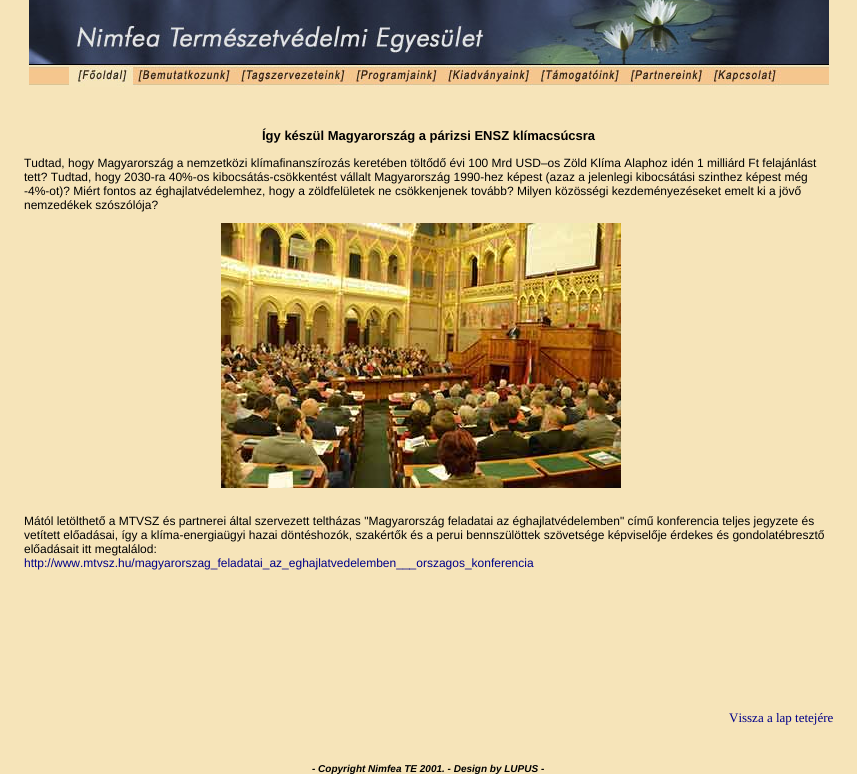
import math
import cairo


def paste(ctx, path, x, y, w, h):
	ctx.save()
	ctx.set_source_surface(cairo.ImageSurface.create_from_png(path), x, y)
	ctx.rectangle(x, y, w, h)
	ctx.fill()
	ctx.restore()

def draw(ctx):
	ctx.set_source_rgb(0.961, 0.894, 0.725)
	ctx.paint()
	paste(ctx, 'media/1.png', 29, 0, 800, 65)
	paste(ctx, 'media/2.png', 29, 65, 800, 22)
	ctx.select_font_face('Liberation Sans', cairo.FONT_SLANT_NORMAL, cairo.FONT_WEIGHT_BOLD)
	ctx.set_font_size(13)
	ctx.set_source_rgb(0, 0, 0)
	ctx.move_to(262, 140)
	ctx.show_text('Így készül Magyarország a párizsi ENSZ klímacsúcsra')
	ctx.select_font_face('Liberation Sans')
	ctx.set_font_size(12)
	for x, y, s in [
		(24, 167, 'Tudtad, hogy Magyarország a nemzetközi klímafinanszírozás keretében töltődő évi 100 Mrd USD–os Zöld Klíma Alaphoz idén 1 milliárd Ft felajánlást'),
		(24, 181, 'tett? Tudtad, hogy 2030-ra 40%-os kibocsátás-csökkentést vállalt Magyarország 1990-hez képest (azaz a jelenlegi kibocsátási szinthez képest még'),
		(24, 195, '-4%-ot)? Miért fontos az éghajlatvédelemhez, hogy a zöldfelületek ne csökkenjenek tovább? Milyen közösségi kezdeményezéseket emelt ki a jövő'),
		(24, 209, 'nemzedékek szószólója?'),
	]:
		ctx.move_to(x, y)
		ctx.show_text(s)
	paste(ctx, 'media/3.png', 221, 223, 400, 265)
	for x, y, s in [
		(24, 525, 'Mától letölthető a MTVSZ és partnerei által szervezett teltházas "Magyarország feladatai az éghajlatvédelemben" című konferencia teljes jegyzete és'),
		(24, 539, 'vetített előadásai, így a klíma-energiaügyi hazai döntéshozók, szakértők és a perui bennszülöttek szövetsége képviselője érdekes és gondolatébresztő'),
		(24, 553, 'előadásait itt megtalálod:'),
	]:
		ctx.move_to(x, y)
		ctx.show_text(s)
	ctx.set_source_rgb(0, 0, 0.533)
	ctx.move_to(24, 567)
	ctx.show_text('http://www.mtvsz.hu/magyarorszag_feladatai_az_eghajlatvedelemben___orszagos_konferencia')
	ctx.select_font_face('Liberation Serif')
	ctx.set_font_size(13)
	ctx.move_to(729, 722)
	ctx.show_text('Vissza a lap tetejére')
	ctx.select_font_face('Liberation Sans', cairo.FONT_SLANT_ITALIC, cairo.FONT_WEIGHT_BOLD)
	ctx.set_font_size(10)
	ctx.set_source_rgb(0, 0, 0)
	ctx.move_to(312, 772)
	ctx.show_text('- Copyright Nimfea TE 2001. - Design by LUPUS -')


surface = cairo.ImageSurface(cairo.FORMAT_RGB24, 857, 774)
ctx = cairo.Context(surface)
options = cairo.FontOptions()
options.set_hint_metrics(cairo.HINT_METRICS_OFF)
options.set_hint_style(cairo.HINT_STYLE_NONE)
ctx.set_font_options(options)
ctx.set_miter_limit(4)
draw(ctx)
surface.write_to_png('image.png')
